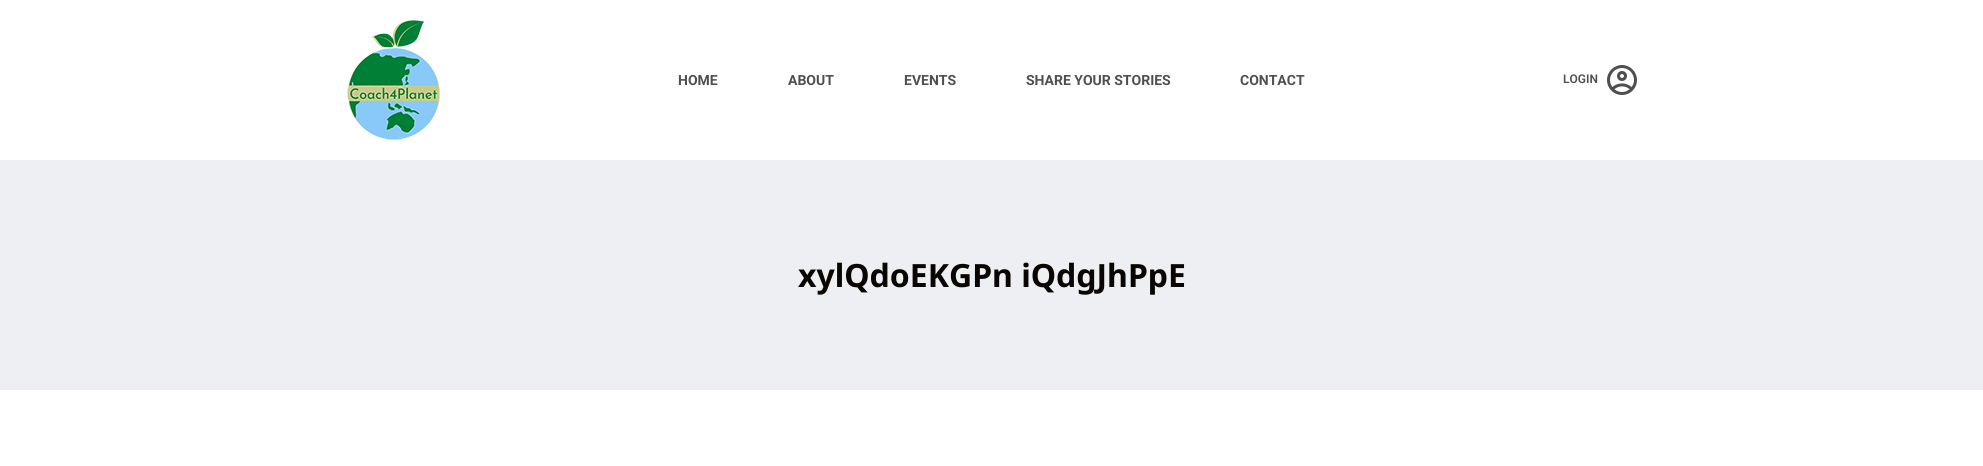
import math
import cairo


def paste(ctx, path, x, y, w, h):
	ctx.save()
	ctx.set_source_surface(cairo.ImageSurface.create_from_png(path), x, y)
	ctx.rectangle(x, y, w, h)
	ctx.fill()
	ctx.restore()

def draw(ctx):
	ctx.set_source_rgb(1, 1, 1)
	ctx.paint()
	paste(ctx, 'media/1.png', 347, 20, 93, 120)
	ctx.select_font_face('Roboto', cairo.FONT_SLANT_NORMAL, cairo.FONT_WEIGHT_BOLD)
	ctx.set_font_size(14)
	ctx.set_source_rgb(0.31, 0.31, 0.31)
	for x, y, s in [
		(678, 85, 'HOME'),
		(788, 85, 'ABOUT'),
		(904, 85, 'EVENTS'),
		(1026, 85, 'SHARE YOUR STORIES'),
		(1240, 85, 'CONTACT'),
	]:
		ctx.move_to(x, y)
		ctx.show_text(s)
	ctx.select_font_face('Roboto SemiBold')
	ctx.set_font_size(12)
	ctx.move_to(1563, 83)
	ctx.show_text('LOGIN')
	paste(ctx, 'media/2.png', 1607, 65, 30, 30)
	ctx.set_source_rgb(0.929, 0.937, 0.949)
	ctx.rectangle(0, 160, 1983, 230)
	ctx.fill()
	ctx.select_font_face('Noto Sans', cairo.FONT_SLANT_NORMAL, cairo.FONT_WEIGHT_BOLD)
	ctx.set_font_size(32)
	ctx.set_source_rgb(0.039, 0.02, 0)
	ctx.move_to(798, 287)
	ctx.show_text('xylQdoEKGPn iQdgJhPpE')


surface = cairo.ImageSurface(cairo.FORMAT_RGB24, 1983, 466)
ctx = cairo.Context(surface)
options = cairo.FontOptions()
options.set_hint_metrics(cairo.HINT_METRICS_OFF)
options.set_hint_style(cairo.HINT_STYLE_NONE)
ctx.set_font_options(options)
ctx.set_miter_limit(4)
draw(ctx)
surface.write_to_png('image.png')
